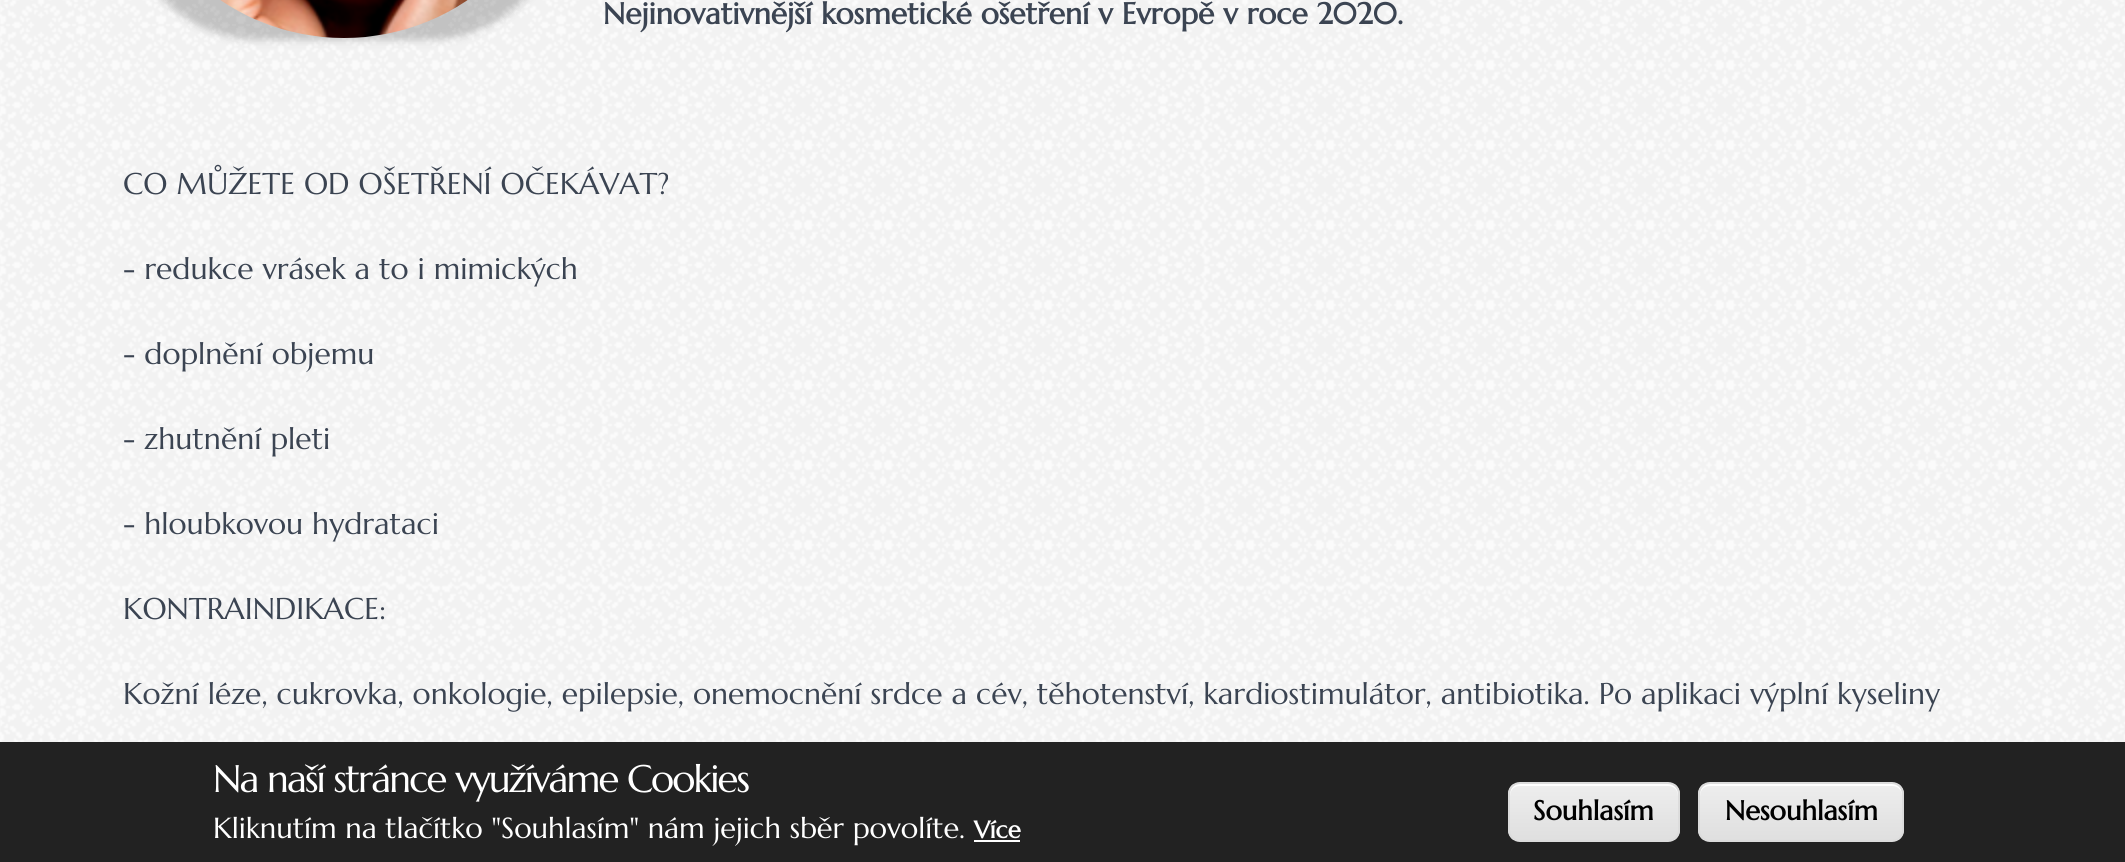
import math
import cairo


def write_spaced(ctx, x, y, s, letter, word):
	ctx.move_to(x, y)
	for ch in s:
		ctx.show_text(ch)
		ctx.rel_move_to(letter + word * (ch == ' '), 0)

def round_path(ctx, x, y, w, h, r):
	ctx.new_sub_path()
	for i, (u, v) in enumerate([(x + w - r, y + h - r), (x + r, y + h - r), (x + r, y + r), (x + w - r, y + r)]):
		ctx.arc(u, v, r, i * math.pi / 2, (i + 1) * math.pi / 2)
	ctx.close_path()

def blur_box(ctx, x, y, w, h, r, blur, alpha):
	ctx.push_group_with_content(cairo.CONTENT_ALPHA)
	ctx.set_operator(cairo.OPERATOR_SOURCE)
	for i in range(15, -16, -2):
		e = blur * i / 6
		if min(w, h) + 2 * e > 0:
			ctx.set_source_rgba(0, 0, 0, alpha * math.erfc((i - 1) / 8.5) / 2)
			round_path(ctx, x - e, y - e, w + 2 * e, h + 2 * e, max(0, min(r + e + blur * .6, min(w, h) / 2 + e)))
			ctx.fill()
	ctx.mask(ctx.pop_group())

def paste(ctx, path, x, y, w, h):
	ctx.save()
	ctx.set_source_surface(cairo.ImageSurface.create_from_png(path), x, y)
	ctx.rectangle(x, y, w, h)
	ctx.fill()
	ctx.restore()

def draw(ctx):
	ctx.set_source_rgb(1, 1, 1)
	ctx.paint()
	paste(ctx, 'media/1.png', 0, 0, 2125, 742)
	ctx.set_source_rgb(0, 0, 0)
	blur_box(ctx, 124, -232, 440, 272, 220, 4, 0.2)
	paste(ctx, 'media/2.png', 220, 0, 248, 38)
	ctx.select_font_face('Marcellus', cairo.FONT_SLANT_NORMAL, cairo.FONT_WEIGHT_BOLD)
	ctx.set_font_size(30)
	ctx.set_source_rgb(0.231, 0.267, 0.322)
	ctx.move_to(603, 24)
	ctx.show_text('Nejinovativnější kosmetické ošetření v Evropě v roce 2020.')
	ctx.select_font_face('Marcellus')
	for x, y, s in [
		(123, 194, 'CO MŮŽETE OD OŠETŘENÍ OČEKÁVAT?'),
		(123, 279, '- redukce vrásek a to i mimických'),
		(123, 364, '- doplnění objemu'),
		(123, 449, '- zhutnění pleti'),
		(123, 534, '- hloubkovou hydrataci'),
		(123, 619, 'KONTRAINDIKACE:'),
		(123, 704, 'Kožní léze, cukrovka, onkologie, epilepsie, onemocnění srdce a cév, těhotenství, kardiostimulátor, antibiotika. Po aplikaci výplní kyseliny'),
	]:
		ctx.move_to(x, y)
		ctx.show_text(s)
	ctx.set_source_rgb(0.133, 0.133, 0.133)
	ctx.rectangle(0, 742, 2125, 120)
	ctx.fill()
	ctx.set_font_size(38.4)
	ctx.set_source_rgb(1, 1, 1)
	write_spaced(ctx, 213, 792, 'Na naší stránce využíváme Cookies', -1.9, 0)
	ctx.set_font_size(29)
	ctx.move_to(213, 838)
	ctx.show_text('Kliknutím na tlačítko "Souhlasím" nám jejich sběr povolíte.')
	ctx.select_font_face('Marcellus', cairo.FONT_SLANT_NORMAL, cairo.FONT_WEIGHT_BOLD)
	ctx.set_font_size(24)
	ctx.move_to(974, 838)
	ctx.show_text('Více')
	ctx.rectangle(974, 840, 46, 2)
	ctx.fill()
	ctx.save()
	round_path(ctx, 1508, 782, 172, 60, 12)
	ctx.clip()
	gradient = cairo.LinearGradient(1594, 784, 1594, 840)
	gradient.add_color_stop_rgba(0.05, 0.929, 0.929, 0.929, 1)
	gradient.add_color_stop_rgba(1, 0.875, 0.875, 0.875, 1)
	ctx.set_source(gradient)
	ctx.rectangle(1508, 784, 172, 56)
	ctx.fill()
	ctx.restore()
	ctx.new_path()
	ctx.move_to(1520, 786)
	ctx.line_to(1668, 786)
	ctx.curve_to(1674, 786, 1678, 790, 1678, 796)
	ctx.line_to(1678, 794)
	ctx.curve_to(1678, 788, 1674, 784, 1668, 784)
	ctx.line_to(1520, 784)
	ctx.curve_to(1514, 784, 1510, 788, 1510, 794)
	ctx.line_to(1510, 796)
	ctx.curve_to(1510, 790, 1514, 786, 1520, 786)
	ctx.close_path()
	ctx.fill()
	round_path(ctx, 1509, 783, 170, 58, 11)
	ctx.set_source_rgb(0.863, 0.863, 0.863)
	ctx.stroke()
	ctx.set_font_size(27.25)
	ctx.set_source_rgb(0, 0, 0)
	ctx.move_to(1533, 820)
	ctx.show_text('Souhlasím')
	ctx.save()
	round_path(ctx, 1698, 782, 206, 60, 12)
	ctx.clip()
	gradient = cairo.LinearGradient(1801, 784, 1801, 840)
	gradient.add_color_stop_rgba(0.05, 0.929, 0.929, 0.929, 1)
	gradient.add_color_stop_rgba(1, 0.875, 0.875, 0.875, 1)
	ctx.set_source(gradient)
	ctx.rectangle(1698, 784, 206, 56)
	ctx.fill()
	ctx.restore()
	ctx.set_source_rgb(1, 1, 1)
	ctx.new_path()
	ctx.move_to(1710, 786)
	ctx.line_to(1892, 786)
	ctx.curve_to(1898, 786, 1902, 790, 1902, 796)
	ctx.line_to(1902, 794)
	ctx.curve_to(1902, 788, 1898, 784, 1892, 784)
	ctx.line_to(1710, 784)
	ctx.curve_to(1704, 784, 1700, 788, 1700, 794)
	ctx.line_to(1700, 796)
	ctx.curve_to(1700, 790, 1704, 786, 1710, 786)
	ctx.close_path()
	ctx.fill()
	round_path(ctx, 1699, 783, 204, 58, 11)
	ctx.set_source_rgb(0.863, 0.863, 0.863)
	ctx.stroke()
	ctx.set_source_rgb(0, 0, 0)
	ctx.move_to(1725, 820)
	ctx.show_text('Nesouhlasím')


surface = cairo.ImageSurface(cairo.FORMAT_RGB24, 2125, 862)
ctx = cairo.Context(surface)
options = cairo.FontOptions()
options.set_hint_metrics(cairo.HINT_METRICS_OFF)
options.set_hint_style(cairo.HINT_STYLE_NONE)
ctx.set_font_options(options)
ctx.set_miter_limit(4)
draw(ctx)
surface.write_to_png('image.png')
